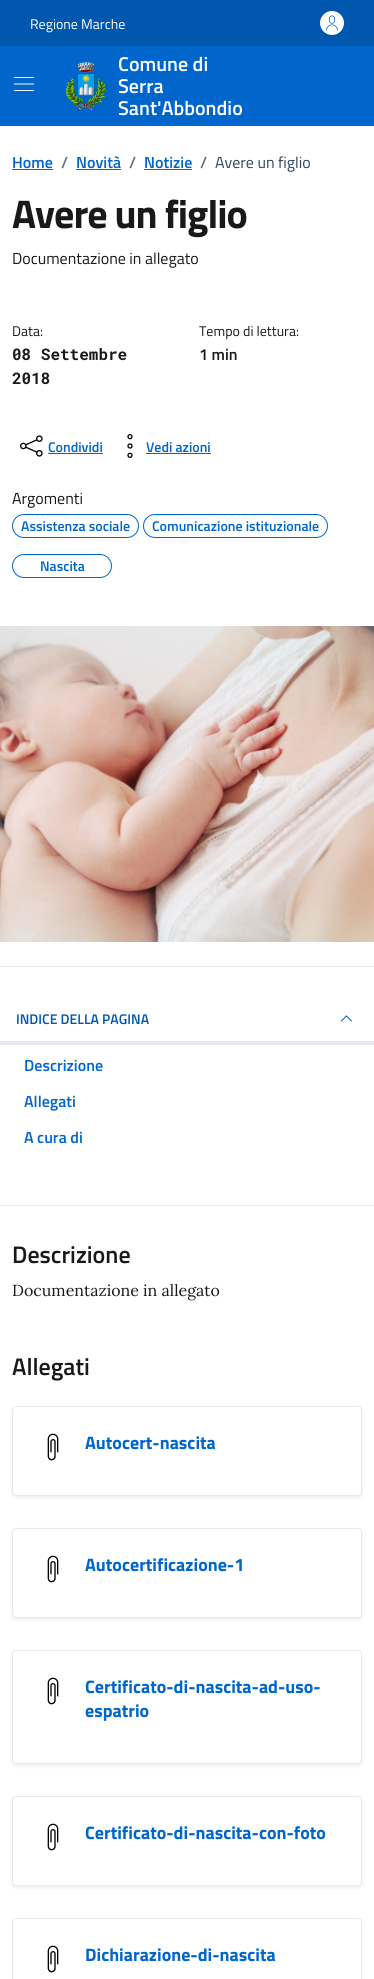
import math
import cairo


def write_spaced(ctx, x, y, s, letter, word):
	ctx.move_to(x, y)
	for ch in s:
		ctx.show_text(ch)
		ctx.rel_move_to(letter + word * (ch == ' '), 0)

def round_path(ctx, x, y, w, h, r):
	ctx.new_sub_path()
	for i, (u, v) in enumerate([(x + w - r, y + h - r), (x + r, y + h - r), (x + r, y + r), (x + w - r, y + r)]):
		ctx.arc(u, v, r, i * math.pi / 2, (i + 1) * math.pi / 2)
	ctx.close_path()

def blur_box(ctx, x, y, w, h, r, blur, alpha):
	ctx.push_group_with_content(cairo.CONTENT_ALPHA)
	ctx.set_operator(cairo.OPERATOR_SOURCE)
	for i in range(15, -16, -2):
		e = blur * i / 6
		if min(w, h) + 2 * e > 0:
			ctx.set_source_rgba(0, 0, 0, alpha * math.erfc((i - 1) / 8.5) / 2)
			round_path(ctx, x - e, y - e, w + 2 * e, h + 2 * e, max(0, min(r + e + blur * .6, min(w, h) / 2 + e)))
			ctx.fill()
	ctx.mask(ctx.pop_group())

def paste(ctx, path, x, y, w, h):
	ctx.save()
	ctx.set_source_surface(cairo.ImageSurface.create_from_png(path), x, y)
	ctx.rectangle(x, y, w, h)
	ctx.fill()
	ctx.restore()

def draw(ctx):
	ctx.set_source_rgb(1, 1, 1)
	ctx.paint()
	ctx.set_source_rgb(0, 0.341, 0.682)
	ctx.rectangle(0, 0, 374, 46)
	ctx.fill()
	ctx.select_font_face('Titillium Web')
	ctx.set_font_size(14)
	ctx.set_source_rgb(1, 1, 1)
	ctx.move_to(30, 29)
	ctx.show_text('Regione Marche')
	ctx.new_path()
	ctx.arc(332, 23, 12, 0, 2 * math.pi)
	ctx.fill()
	paste(ctx, 'media/1.png', 326, 15, 12, 16)
	ctx.set_source_rgb(0, 0.4, 0.796)
	ctx.rectangle(0, 46, 374, 80)
	ctx.fill()
	paste(ctx, 'media/2.png', 14, 77, 20, 14)
	paste(ctx, 'media/3.png', 65, 62, 42, 48)
	ctx.select_font_face('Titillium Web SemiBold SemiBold')
	ctx.set_font_size(20)
	ctx.set_source_rgb(1, 1, 1)
	for x, y, s in [
		(118, 71, 'Comune di'),
		(118, 93, 'Serra'),
		(118, 115, 'Sant\'Abbondio'),
	]:
		ctx.move_to(x, y)
		ctx.show_text(s)
	ctx.set_font_size(16)
	ctx.set_source_rgb(0, 0.4, 0.796)
	ctx.move_to(12, 168)
	ctx.show_text('Home')
	ctx.rectangle(12, 169, 41, 1)
	ctx.fill()
	ctx.set_source_rgb(0.365, 0.439, 0.514)
	ctx.move_to(61, 168)
	ctx.show_text('/')
	ctx.set_source_rgb(0, 0.4, 0.796)
	ctx.move_to(76, 168)
	ctx.show_text('Novità')
	ctx.rectangle(76, 169, 45, 1)
	ctx.fill()
	ctx.set_source_rgb(0.365, 0.439, 0.514)
	ctx.move_to(129, 168)
	ctx.show_text('/')
	ctx.set_source_rgb(0, 0.4, 0.796)
	ctx.move_to(144, 168)
	ctx.show_text('Notizie')
	ctx.rectangle(144, 169, 48, 1)
	ctx.fill()
	ctx.set_source_rgb(0.365, 0.439, 0.514)
	ctx.move_to(200, 168)
	ctx.show_text('/')
	ctx.select_font_face('Titillium Web')
	ctx.set_source_rgb(0.188, 0.278, 0.373)
	ctx.move_to(215, 168)
	ctx.show_text('Avere un figlio')
	ctx.select_font_face('Titillium Web', cairo.FONT_SLANT_NORMAL, cairo.FONT_WEIGHT_BOLD)
	ctx.set_font_size(40)
	ctx.set_source_rgb(0.098, 0.098, 0.098)
	write_spaced(ctx, 12, 228, 'Avere un figlio', -1, 0)
	ctx.select_font_face('Titillium Web')
	ctx.set_font_size(16)
	ctx.move_to(12, 264)
	ctx.show_text('Documentazione in allegato')
	ctx.set_font_size(14)
	ctx.move_to(12, 336)
	ctx.show_text('Data:')
	ctx.select_font_face('Roboto Mono', cairo.FONT_SLANT_NORMAL, cairo.FONT_WEIGHT_BOLD)
	ctx.set_font_size(16)
	ctx.move_to(12, 360)
	ctx.show_text('08 Settembre')
	ctx.move_to(12, 384)
	ctx.show_text('2018')
	ctx.select_font_face('Titillium Web')
	ctx.set_font_size(14)
	ctx.move_to(199, 336)
	ctx.show_text('Tempo di lettura:')
	ctx.select_font_face('Titillium Web SemiBold SemiBold')
	ctx.set_font_size(16)
	ctx.move_to(199, 360)
	ctx.show_text('1 min')
	paste(ctx, 'media/4.png', 20, 435, 23, 22)
	ctx.set_font_size(14)
	ctx.set_source_rgb(0, 0.4, 0.796)
	ctx.move_to(48, 452)
	ctx.show_text('Condividi')
	ctx.rectangle(48, 453, 55, 1)
	ctx.fill()
	paste(ctx, 'media/5.png', 127, 434, 6, 24)
	ctx.move_to(146, 452)
	ctx.show_text('Vedi azioni')
	ctx.rectangle(146, 453, 65, 1)
	ctx.fill()
	ctx.select_font_face('Titillium Web')
	ctx.set_font_size(16)
	ctx.set_source_rgb(0.098, 0.098, 0.098)
	ctx.move_to(12, 504)
	ctx.show_text('Argomenti')
	round_path(ctx, 12.5, 514.5, 126, 23, 11.5)
	ctx.set_source_rgb(0, 0.4, 0.796)
	ctx.set_line_width(1)
	ctx.stroke()
	ctx.select_font_face('Titillium Web SemiBold SemiBold')
	ctx.set_font_size(14)
	ctx.move_to(21, 531)
	ctx.show_text('Assistenza sociale')
	round_path(ctx, 143.5, 514.5, 184, 23, 11.5)
	ctx.stroke()
	ctx.move_to(152, 531)
	ctx.show_text('Comunicazione istituzionale')
	round_path(ctx, 12.5, 554.5, 99, 23, 11.5)
	ctx.stroke()
	ctx.move_to(40, 571)
	ctx.show_text('Nascita')
	paste(ctx, 'media/6.png', 0, 626, 374, 316)
	ctx.set_source_rgb(0.914, 0.902, 0.949)
	ctx.rectangle(0, 966, 374, 1)
	ctx.fill()
	ctx.set_source_rgb(0, 0.341, 0.682)
	ctx.move_to(16, 1024)
	ctx.show_text('INDICE DELLA PAGINA')
	paste(ctx, 'media/7.png', 340, 1015, 12, 7)
	ctx.set_source_rgb(0.914, 0.902, 0.949)
	ctx.rectangle(0, 1041, 374, 4)
	ctx.fill()
	ctx.set_font_size(16)
	ctx.set_source_rgb(0, 0.4, 0.796)
	for x, y, s in [
		(24, 1071, 'Descrizione'),
		(24, 1107, 'Allegati'),
		(24, 1143, 'A cura di'),
	]:
		ctx.move_to(x, y)
		ctx.show_text(s)
	ctx.set_source_rgb(0.914, 0.902, 0.949)
	ctx.rectangle(0, 1205, 374, 1)
	ctx.fill()
	ctx.set_font_size(24)
	ctx.set_source_rgb(0.098, 0.098, 0.098)
	ctx.move_to(12, 1263)
	ctx.show_text('Descrizione')
	ctx.select_font_face('Lora')
	ctx.set_font_size(16)
	ctx.move_to(12, 1296)
	ctx.show_text('Documentazione in allegato')
	ctx.select_font_face('Titillium Web SemiBold SemiBold')
	ctx.set_font_size(24)
	ctx.move_to(12, 1375)
	ctx.show_text('Allegati')
	ctx.set_source_rgb(0, 0, 0)
	blur_box(ctx, 12, 1408, 350, 90, 4, 2, 0.07)
	ctx.set_source_rgb(1, 1, 1)
	round_path(ctx, 12.5, 1406.5, 349, 89, 3.5)
	ctx.fill_preserve()
	ctx.set_source_rgb(0.914, 0.902, 0.949)
	ctx.stroke()
	paste(ctx, 'media/8.png', 47, 1433, 12, 28)
	ctx.select_font_face('Titillium Web', cairo.FONT_SLANT_NORMAL, cairo.FONT_WEIGHT_BOLD)
	ctx.set_font_size(18)
	ctx.set_source_rgb(0, 0.4, 0.796)
	ctx.move_to(85, 1449)
	ctx.show_text('Autocert-nascita')
	ctx.set_source_rgb(0, 0, 0)
	blur_box(ctx, 12, 1530, 350, 90, 4, 2, 0.07)
	ctx.set_source_rgb(1, 1, 1)
	round_path(ctx, 12.5, 1528.5, 349, 89, 3.5)
	ctx.fill_preserve()
	ctx.set_source_rgb(0.914, 0.902, 0.949)
	ctx.stroke()
	paste(ctx, 'media/8.png', 47, 1555, 12, 28)
	ctx.set_source_rgb(0, 0.4, 0.796)
	ctx.move_to(85, 1571)
	ctx.show_text('Autocertificazione-1')
	ctx.set_source_rgb(0, 0, 0)
	blur_box(ctx, 12, 1652, 350, 114, 4, 2, 0.07)
	ctx.set_source_rgb(1, 1, 1)
	round_path(ctx, 12.5, 1650.5, 349, 113, 3.5)
	ctx.fill_preserve()
	ctx.set_source_rgb(0.914, 0.902, 0.949)
	ctx.stroke()
	paste(ctx, 'media/8.png', 47, 1677, 12, 28)
	ctx.set_source_rgb(0, 0.4, 0.796)
	ctx.move_to(85, 1693)
	ctx.show_text('Certificato-di-nascita-ad-uso-')
	ctx.move_to(85, 1717)
	ctx.show_text('espatrio')
	ctx.set_source_rgb(0, 0, 0)
	blur_box(ctx, 12, 1798, 350, 90, 4, 2, 0.07)
	ctx.set_source_rgb(1, 1, 1)
	round_path(ctx, 12.5, 1796.5, 349, 89, 3.5)
	ctx.fill_preserve()
	ctx.set_source_rgb(0.914, 0.902, 0.949)
	ctx.stroke()
	paste(ctx, 'media/8.png', 47, 1823, 12, 28)
	ctx.set_source_rgb(0, 0.4, 0.796)
	ctx.move_to(85, 1839)
	ctx.show_text('Certificato-di-nascita-con-foto')
	round_path(ctx, 12.5, 1918.5, 349, 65, 3.5)
	ctx.set_source_rgb(0.914, 0.902, 0.949)
	ctx.stroke()
	paste(ctx, 'media/8.png', 47, 1945, 12, 28)
	ctx.set_source_rgb(0, 0.4, 0.796)
	ctx.move_to(85, 1961)
	ctx.show_text('Dichiarazione-di-nascita')


surface = cairo.ImageSurface(cairo.FORMAT_RGB24, 374, 1979)
ctx = cairo.Context(surface)
options = cairo.FontOptions()
options.set_hint_metrics(cairo.HINT_METRICS_OFF)
options.set_hint_style(cairo.HINT_STYLE_NONE)
ctx.set_font_options(options)
ctx.set_miter_limit(4)
draw(ctx)
surface.write_to_png('image.png')
